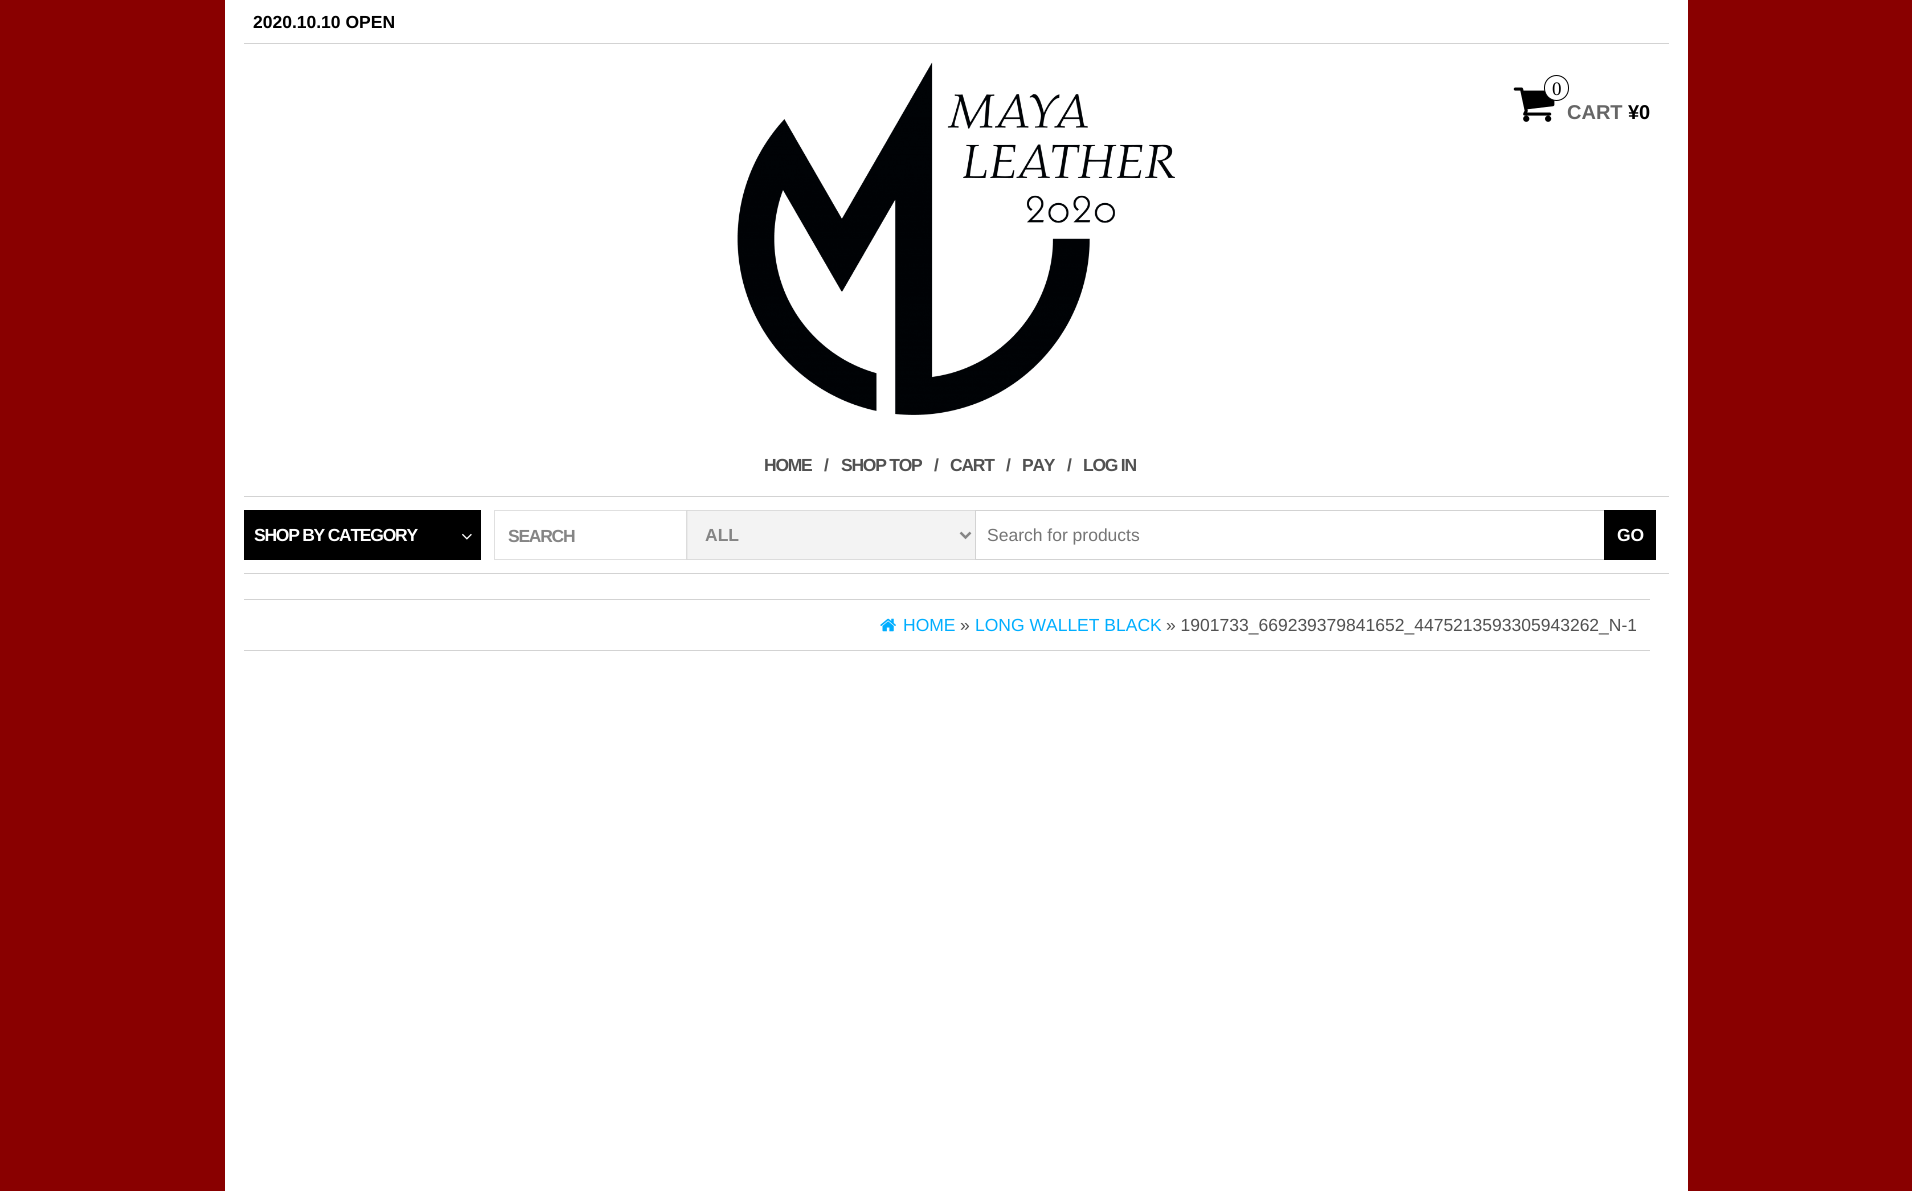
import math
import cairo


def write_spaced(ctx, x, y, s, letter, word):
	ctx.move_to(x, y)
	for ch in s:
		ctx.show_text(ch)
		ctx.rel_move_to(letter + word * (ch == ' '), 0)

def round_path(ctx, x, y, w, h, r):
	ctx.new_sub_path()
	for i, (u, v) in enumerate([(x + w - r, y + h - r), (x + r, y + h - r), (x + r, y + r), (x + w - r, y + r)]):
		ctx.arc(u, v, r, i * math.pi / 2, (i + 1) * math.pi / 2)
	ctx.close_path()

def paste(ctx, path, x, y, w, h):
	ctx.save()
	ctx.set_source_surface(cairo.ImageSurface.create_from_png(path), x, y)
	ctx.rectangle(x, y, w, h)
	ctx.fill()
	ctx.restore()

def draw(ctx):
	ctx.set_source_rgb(0.537, 0, 0)
	ctx.paint()
	ctx.set_source_rgb(1, 1, 1)
	ctx.rectangle(225, 0, 1463, 1191)
	ctx.fill()
	ctx.set_source_rgb(0.827, 0.827, 0.827)
	ctx.rectangle(244, 43, 1425, 1)
	ctx.fill()
	ctx.select_font_face('Liberation Sans', cairo.FONT_SLANT_NORMAL, cairo.FONT_WEIGHT_BOLD)
	ctx.set_font_size(17.5)
	ctx.set_source_rgb(0, 0, 0)
	ctx.move_to(253, 28)
	ctx.show_text('2020.10.10 OPEN')
	paste(ctx, 'media/1.png', 737, 62, 438, 353)
	paste(ctx, 'media/2.png', 1513, 87, 42, 35)
	ctx.set_source_rgb(1, 1, 1)
	round_path(ctx, 1544.5, 75.5, 24, 25, 12)
	ctx.fill_preserve()
	ctx.set_source_rgb(0, 0, 0)
	ctx.set_line_width(1)
	ctx.stroke()
	ctx.select_font_face('Liberation Serif')
	ctx.set_font_size(19)
	ctx.move_to(1552, 95)
	ctx.show_text('0')
	ctx.select_font_face('Liberation Sans', cairo.FONT_SLANT_NORMAL, cairo.FONT_WEIGHT_BOLD)
	ctx.set_font_size(20)
	ctx.set_source_rgb(0.4, 0.4, 0.4)
	ctx.move_to(1567, 119)
	ctx.show_text('CART')
	ctx.set_source_rgb(0, 0, 0)
	ctx.move_to(1628, 119)
	ctx.show_text('¥0')
	ctx.set_source_rgb(0.827, 0.827, 0.827)
	ctx.rectangle(244, 496, 1425, 1)
	ctx.fill()
	ctx.set_font_size(17.5)
	ctx.set_source_rgb(0.318, 0.318, 0.318)
	for x, y, s in [
		(764, 471, 'HOME'),
		(824, 471, '/'),
		(841, 471, 'SHOP TOP'),
		(934, 471, '/'),
		(950, 471, 'CART'),
		(1006, 471, '/'),
		(1022, 471, 'PAY'),
		(1067, 471, '/'),
		(1083, 471, 'LOG IN'),
	]:
		write_spaced(ctx, x, y, s, -1.25, 0)
	ctx.set_source_rgb(0.827, 0.827, 0.827)
	ctx.rectangle(244, 573, 1425, 1)
	ctx.fill()
	ctx.set_source_rgb(0, 0, 0)
	ctx.rectangle(244, 510, 237, 50)
	ctx.fill()
	ctx.set_source_rgb(1, 1, 1)
	write_spaced(ctx, 254, 541, 'SHOP BY CATEGORY', -1.25, 0)
	paste(ctx, 'media/3.png', 462, 533, 10, 7)
	ctx.rectangle(494.5, 510.5, 193, 49)
	ctx.set_source_rgb(0.878, 0.878, 0.878)
	ctx.stroke()
	ctx.set_source_rgb(0.522, 0.522, 0.522)
	write_spaced(ctx, 508, 542, 'SEARCH', -1.25, 0)
	ctx.set_source_rgba(0.937, 0.937, 0.937, 0.7)
	ctx.rectangle(686, 510, 289, 50)
	ctx.fill()
	ctx.rectangle(686.5, 510.5, 289, 49)
	ctx.set_source_rgba(0.827, 0.827, 0.827, 0.7)
	ctx.stroke()
	ctx.new_path()
	ctx.move_to(960.5, 532.5)
	ctx.line_to(965.5, 537.5)
	ctx.line_to(970.5, 532.5)
	ctx.set_source_rgb(0.522, 0.522, 0.522)
	ctx.set_line_width(2.5)
	ctx.stroke()
	ctx.move_to(705, 541)
	ctx.show_text('ALL')
	ctx.rectangle(975.5, 510.5, 678, 49)
	ctx.set_source_rgb(0.827, 0.827, 0.827)
	ctx.set_line_width(1)
	ctx.stroke()
	ctx.select_font_face('Liberation Sans')
	ctx.set_source_rgb(0.459, 0.459, 0.459)
	ctx.move_to(987, 541)
	ctx.show_text('Search for products')
	ctx.set_source_rgb(0, 0, 0)
	ctx.rectangle(1604, 510, 52, 50)
	ctx.fill()
	ctx.select_font_face('Liberation Sans', cairo.FONT_SLANT_NORMAL, cairo.FONT_WEIGHT_BOLD)
	ctx.set_source_rgb(1, 1, 1)
	ctx.move_to(1617, 541)
	ctx.show_text('GO')
	ctx.set_source_rgb(0.827, 0.827, 0.827)
	ctx.rectangle(244, 599, 1406, 1)
	ctx.fill()
	ctx.rectangle(244, 650, 1406, 1)
	ctx.fill()
	paste(ctx, 'media/4.png', 880, 618, 16, 14)
	ctx.select_font_face('Liberation Sans')
	ctx.set_source_rgb(0, 0.682, 1)
	ctx.move_to(903, 631)
	ctx.show_text('HOME')
	ctx.set_source_rgb(0.318, 0.318, 0.318)
	ctx.move_to(960, 631)
	ctx.show_text('»')
	ctx.set_source_rgb(0, 0.682, 1)
	ctx.move_to(975, 631)
	ctx.show_text('LONG WALLET BLACK')
	ctx.set_source_rgb(0.318, 0.318, 0.318)
	ctx.move_to(1166, 631)
	ctx.show_text('» 1901733_669239379841652_4475213593305943262_N-1')


surface = cairo.ImageSurface(cairo.FORMAT_RGB24, 1912, 1191)
ctx = cairo.Context(surface)
options = cairo.FontOptions()
options.set_hint_metrics(cairo.HINT_METRICS_OFF)
options.set_hint_style(cairo.HINT_STYLE_NONE)
ctx.set_font_options(options)
ctx.set_miter_limit(4)
draw(ctx)
surface.write_to_png('image.png')
